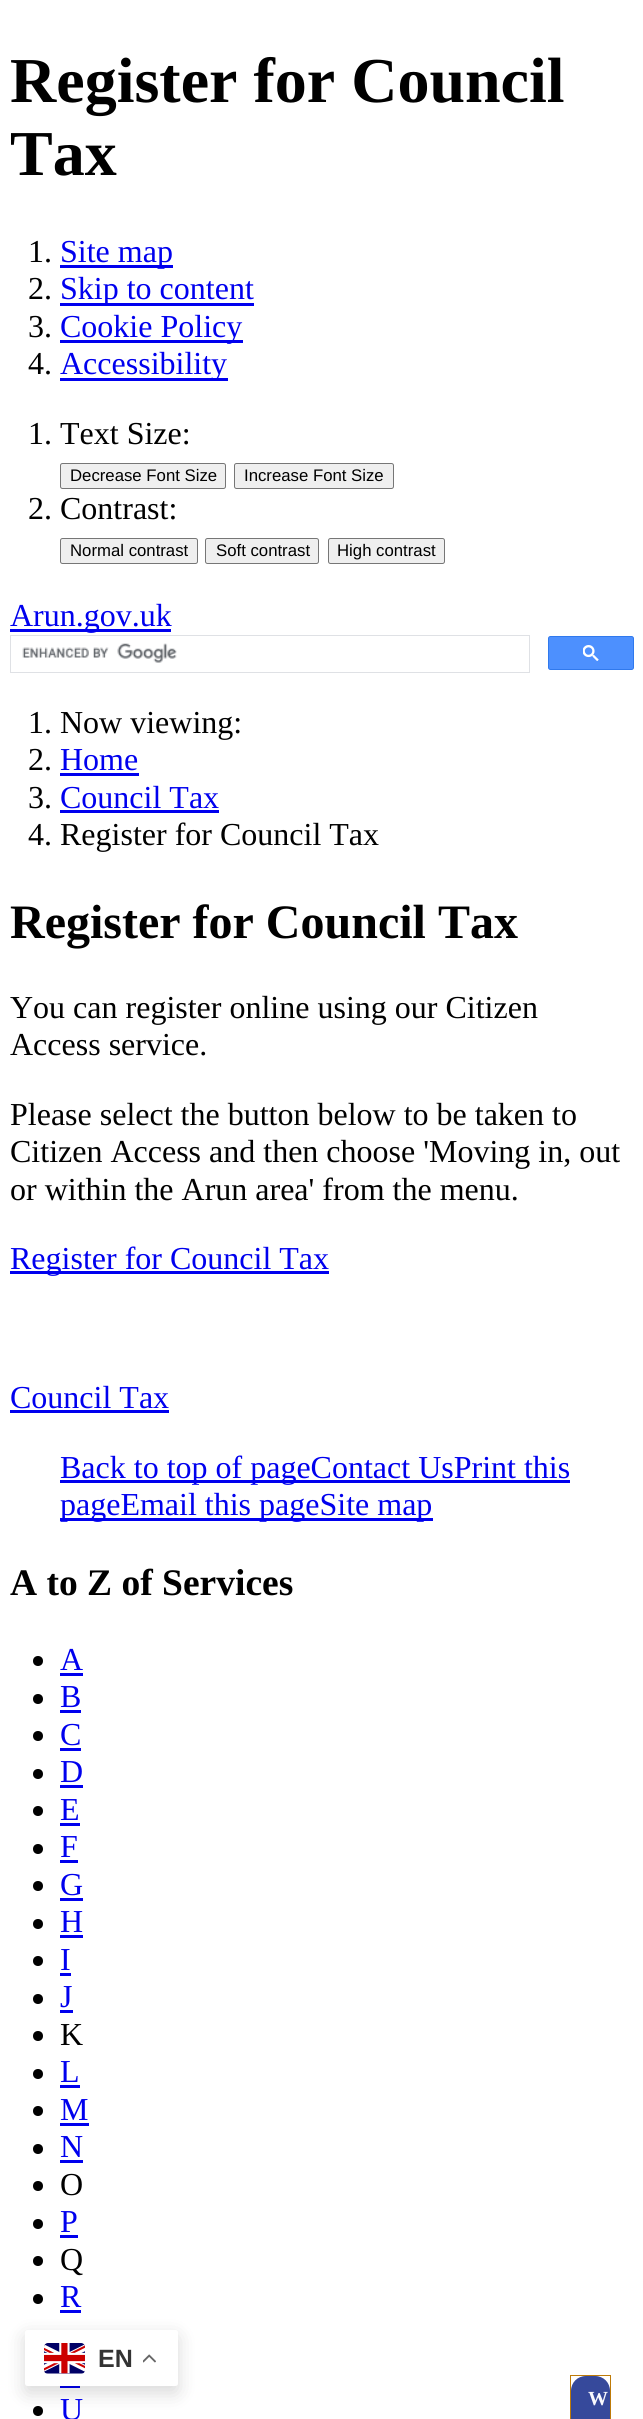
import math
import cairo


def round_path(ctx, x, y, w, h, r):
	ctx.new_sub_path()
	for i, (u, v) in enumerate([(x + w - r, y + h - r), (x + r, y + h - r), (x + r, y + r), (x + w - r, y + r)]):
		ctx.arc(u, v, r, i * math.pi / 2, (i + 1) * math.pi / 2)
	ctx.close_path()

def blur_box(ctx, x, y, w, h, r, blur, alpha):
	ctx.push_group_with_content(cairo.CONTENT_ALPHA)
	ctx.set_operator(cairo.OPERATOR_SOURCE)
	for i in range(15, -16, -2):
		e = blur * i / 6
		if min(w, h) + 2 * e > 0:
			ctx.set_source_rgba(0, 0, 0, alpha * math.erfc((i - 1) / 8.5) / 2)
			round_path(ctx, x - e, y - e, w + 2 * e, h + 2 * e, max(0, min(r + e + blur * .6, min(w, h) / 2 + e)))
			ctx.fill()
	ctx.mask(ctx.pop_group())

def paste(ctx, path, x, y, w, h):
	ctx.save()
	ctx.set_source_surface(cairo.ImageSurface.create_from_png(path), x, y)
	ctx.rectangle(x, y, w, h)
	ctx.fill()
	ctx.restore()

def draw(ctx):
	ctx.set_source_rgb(1, 1, 1)
	ctx.paint()
	ctx.select_font_face('Liberation Serif', cairo.FONT_SLANT_NORMAL, cairo.FONT_WEIGHT_BOLD)
	ctx.set_font_size(64)
	ctx.set_source_rgb(0, 0, 0)
	ctx.move_to(10, 102)
	ctx.show_text('Register for Council')
	ctx.move_to(10, 175)
	ctx.show_text('Tax')
	ctx.select_font_face('Liberation Serif')
	ctx.set_font_size(32)
	ctx.move_to(28, 262)
	ctx.show_text('1.')
	ctx.set_source_rgb(0, 0, 0.933)
	ctx.rectangle(60, 265, 113, 3)
	ctx.fill()
	ctx.move_to(60, 262)
	ctx.show_text('Site map')
	ctx.set_source_rgb(0, 0, 0)
	ctx.move_to(28, 299)
	ctx.show_text('2.')
	ctx.set_source_rgb(0, 0, 0.933)
	ctx.rectangle(60, 303, 194, 3)
	ctx.fill()
	ctx.move_to(60, 299)
	ctx.show_text('Skip to content')
	ctx.set_source_rgb(0, 0, 0)
	ctx.move_to(28, 337)
	ctx.show_text('3.')
	ctx.set_source_rgb(0, 0, 0.933)
	ctx.rectangle(60, 340, 183, 3)
	ctx.fill()
	ctx.move_to(60, 337)
	ctx.show_text('Cookie Policy')
	ctx.set_source_rgb(0, 0, 0)
	ctx.move_to(28, 374)
	ctx.show_text('4.')
	ctx.set_source_rgb(0, 0, 0.933)
	ctx.rectangle(60, 378, 168, 3)
	ctx.fill()
	ctx.move_to(60, 374)
	ctx.show_text('Accessibility')
	ctx.set_source_rgb(0, 0, 0)
	ctx.move_to(28, 444)
	ctx.show_text('1. Text Size:')
	ctx.set_source_rgb(0.937, 0.937, 0.937)
	round_path(ctx, 60.5, 463.5, 165, 25, 2)
	ctx.fill_preserve()
	ctx.set_source_rgb(0.463, 0.463, 0.463)
	ctx.set_line_width(1)
	ctx.stroke()
	ctx.select_font_face('Liberation Sans')
	ctx.set_font_size(16.75)
	ctx.set_source_rgb(0, 0, 0)
	ctx.move_to(70, 481)
	ctx.show_text('Decrease Font Size')
	ctx.set_source_rgb(0.937, 0.937, 0.937)
	round_path(ctx, 234.5, 463.5, 159, 25, 2)
	ctx.fill_preserve()
	ctx.set_source_rgb(0.463, 0.463, 0.463)
	ctx.stroke()
	ctx.set_source_rgb(0, 0, 0)
	ctx.move_to(244, 481)
	ctx.show_text('Increase Font Size')
	ctx.select_font_face('Liberation Serif')
	ctx.set_font_size(32)
	ctx.move_to(28, 519)
	ctx.show_text('2. Contrast:')
	ctx.set_source_rgb(0.937, 0.937, 0.937)
	round_path(ctx, 60.5, 538.5, 137, 25, 2)
	ctx.fill_preserve()
	ctx.set_source_rgb(0.463, 0.463, 0.463)
	ctx.stroke()
	ctx.select_font_face('Liberation Sans')
	ctx.set_font_size(16.75)
	ctx.set_source_rgb(0, 0, 0)
	ctx.move_to(70, 556)
	ctx.show_text('Normal contrast')
	ctx.set_source_rgb(0.937, 0.937, 0.937)
	round_path(ctx, 205.5, 538.5, 113, 25, 2)
	ctx.fill_preserve()
	ctx.set_source_rgb(0.463, 0.463, 0.463)
	ctx.stroke()
	ctx.set_source_rgb(0, 0, 0)
	ctx.move_to(216, 556)
	ctx.show_text('Soft contrast')
	ctx.set_source_rgb(0.937, 0.937, 0.937)
	round_path(ctx, 328.5, 538.5, 116, 25, 2)
	ctx.fill_preserve()
	ctx.set_source_rgb(0.463, 0.463, 0.463)
	ctx.stroke()
	ctx.set_source_rgb(0, 0, 0)
	ctx.move_to(337, 556)
	ctx.show_text('High contrast')
	ctx.set_source_rgb(0, 0, 0.933)
	ctx.rectangle(10, 629, 161, 3)
	ctx.fill()
	ctx.select_font_face('Liberation Serif')
	ctx.set_font_size(32)
	ctx.move_to(10, 626)
	ctx.show_text('Arun.gov.uk')
	ctx.rectangle(10.5, 635.5, 519, 37)
	ctx.set_source_rgb(0.875, 0.882, 0.898)
	ctx.stroke()
	paste(ctx, 'media/1.png', 22, 643, 155, 20)
	ctx.set_source_rgb(0.302, 0.565, 0.996)
	round_path(ctx, 548.5, 636.5, 85, 33, 2)
	ctx.fill_preserve()
	ctx.set_source_rgb(0.188, 0.475, 0.929)
	ctx.stroke()
	paste(ctx, 'media/2.png', 583, 645, 16, 16)
	ctx.set_source_rgb(0, 0, 0.933)
	ctx.rectangle(60, 2310, 21, 3)
	ctx.fill()
	ctx.rectangle(60, 2386, 20, 2)
	ctx.fill()
	ctx.set_source_rgb(0, 0, 0)
	ctx.arc(38, 2411, 5, 0, 2 * math.pi)
	ctx.fill()
	ctx.set_source_rgb(0, 0, 0)
	blur_box(ctx, 25, 2336, 153, 57, 2.5, 9.5, 0.15)
	ctx.set_source_rgb(1, 1, 1)
	round_path(ctx, 25, 2330, 153, 56, 2.5)
	ctx.fill()
	paste(ctx, 'media/3.png', 44, 2343, 41, 31)
	ctx.select_font_face('Liberation Sans', cairo.FONT_SLANT_NORMAL, cairo.FONT_WEIGHT_BOLD)
	ctx.set_font_size(25)
	ctx.set_source_rgb(0.2, 0.2, 0.2)
	ctx.move_to(98, 2367)
	ctx.show_text('EN')
	paste(ctx, 'media/4.png', 143, 2354, 13, 9)
	ctx.rectangle(570.5, 2375.5, 40, 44)
	ctx.set_source_rgb(0.745, 0.478, 0.035)
	ctx.stroke()
	ctx.set_source_rgb(0.212, 0.286, 0.608)
	ctx.new_path()
	ctx.move_to(586, 2376)
	ctx.line_to(595, 2376)
	ctx.curve_to(603.5, 2376, 610, 2382.5, 610, 2391)
	ctx.line_to(610, 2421)
	ctx.line_to(571, 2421)
	ctx.line_to(571, 2391)
	ctx.curve_to(571, 2382.5, 577.5, 2376, 586, 2376)
	ctx.close_path()
	ctx.fill()
	ctx.select_font_face('Liberation Serif', cairo.FONT_SLANT_NORMAL, cairo.FONT_WEIGHT_BOLD)
	ctx.set_font_size(20)
	ctx.set_source_rgb(0.973, 0.973, 0.992)
	ctx.move_to(588, 2405)
	ctx.show_text('W')
	ctx.select_font_face('Liberation Serif')
	ctx.set_font_size(32)
	ctx.set_source_rgb(0, 0, 0)
	ctx.move_to(28, 733)
	ctx.show_text('1. Now viewing:')
	ctx.move_to(28, 770)
	ctx.show_text('2.')
	ctx.set_source_rgb(0, 0, 0.933)
	ctx.move_to(60, 770)
	ctx.show_text('Home')
	ctx.rectangle(60, 773, 79, 3)
	ctx.fill()
	ctx.set_source_rgb(0, 0, 0)
	ctx.move_to(28, 808)
	ctx.show_text('3.')
	ctx.set_source_rgb(0, 0, 0.933)
	ctx.move_to(60, 808)
	ctx.show_text('Council Tax')
	ctx.rectangle(60, 810, 159, 3)
	ctx.fill()
	ctx.set_source_rgb(0, 0, 0)
	ctx.move_to(28, 845)
	ctx.show_text('4. Register for Council Tax')
	ctx.select_font_face('Liberation Serif', cairo.FONT_SLANT_NORMAL, cairo.FONT_WEIGHT_BOLD)
	ctx.set_font_size(48)
	ctx.move_to(10, 938)
	ctx.show_text('Register for Council Tax')
	ctx.select_font_face('Liberation Serif')
	ctx.set_font_size(32)
	for x, y, s in [
		(10, 1018, 'You can register online using our Citizen'),
		(10, 1055, 'Access service.'),
		(10, 1125, 'Please select the button below to be taken to'),
		(10, 1162, 'Citizen Access and then choose \'Moving in, out'),
		(10, 1200, 'or within the Arun area\' from the menu.'),
	]:
		ctx.move_to(x, y)
		ctx.show_text(s)
	ctx.set_source_rgb(0, 0, 0.933)
	ctx.rectangle(10, 1271, 319, 3)
	ctx.fill()
	ctx.move_to(10, 1269)
	ctx.show_text('Register for Council Tax')
	ctx.move_to(10, 1408)
	ctx.show_text('Council Tax')
	ctx.rectangle(10, 1410, 159, 3)
	ctx.fill()
	ctx.rectangle(60, 1480, 510, 3)
	ctx.fill()
	ctx.move_to(60, 1478)
	ctx.show_text('Back to top of pageContact UsPrint this')
	ctx.rectangle(60, 1518, 373, 3)
	ctx.fill()
	ctx.move_to(60, 1515)
	ctx.show_text('pageEmail this pageSite map')
	ctx.select_font_face('Liberation Serif', cairo.FONT_SLANT_NORMAL, cairo.FONT_WEIGHT_BOLD)
	ctx.set_font_size(37.5)
	ctx.set_source_rgb(0, 0, 0)
	ctx.move_to(10, 1595)
	ctx.show_text('A to Z of Services')
	ctx.new_path()
	ctx.arc(38, 1661, 5, 0, 2 * math.pi)
	ctx.fill()
	ctx.select_font_face('Liberation Serif')
	ctx.set_font_size(32)
	ctx.set_source_rgb(0, 0, 0.933)
	ctx.move_to(60, 1670)
	ctx.show_text('A')
	ctx.rectangle(60, 1673, 23, 3)
	ctx.fill()
	ctx.set_source_rgb(0, 0, 0)
	ctx.arc(38, 1699, 5, 0, 2 * math.pi)
	ctx.fill()
	ctx.set_source_rgb(0, 0, 0.933)
	ctx.move_to(60, 1707)
	ctx.show_text('B')
	ctx.rectangle(60, 1710, 21, 3)
	ctx.fill()
	ctx.set_source_rgb(0, 0, 0)
	ctx.arc(38, 1736, 5, 0, 2 * math.pi)
	ctx.fill()
	ctx.set_source_rgb(0, 0, 0.933)
	ctx.move_to(60, 1745)
	ctx.show_text('C')
	ctx.rectangle(60, 1748, 21, 3)
	ctx.fill()
	ctx.set_source_rgb(0, 0, 0)
	ctx.arc(38, 1774, 5, 0, 2 * math.pi)
	ctx.fill()
	ctx.set_source_rgb(0, 0, 0.933)
	ctx.move_to(60, 1782)
	ctx.show_text('D')
	ctx.rectangle(60, 1785, 23, 3)
	ctx.fill()
	ctx.set_source_rgb(0, 0, 0)
	ctx.arc(38, 1811, 5, 0, 2 * math.pi)
	ctx.fill()
	ctx.set_source_rgb(0, 0, 0.933)
	ctx.move_to(60, 1820)
	ctx.show_text('E')
	ctx.rectangle(60, 1823, 20, 3)
	ctx.fill()
	ctx.set_source_rgb(0, 0, 0)
	ctx.arc(38, 1849, 5, 0, 2 * math.pi)
	ctx.fill()
	ctx.set_source_rgb(0, 0, 0.933)
	ctx.move_to(60, 1857)
	ctx.show_text('F')
	ctx.rectangle(60, 1860, 18, 3)
	ctx.fill()
	ctx.set_source_rgb(0, 0, 0)
	ctx.arc(38, 1886, 5, 0, 2 * math.pi)
	ctx.fill()
	ctx.set_source_rgb(0, 0, 0.933)
	ctx.move_to(60, 1895)
	ctx.show_text('G')
	ctx.rectangle(60, 1898, 23, 3)
	ctx.fill()
	ctx.set_source_rgb(0, 0, 0)
	ctx.arc(38, 1924, 5, 0, 2 * math.pi)
	ctx.fill()
	ctx.set_source_rgb(0, 0, 0.933)
	ctx.move_to(60, 1932)
	ctx.show_text('H')
	ctx.rectangle(60, 1935, 23, 3)
	ctx.fill()
	ctx.set_source_rgb(0, 0, 0)
	ctx.arc(38, 1961, 5, 0, 2 * math.pi)
	ctx.fill()
	ctx.set_source_rgb(0, 0, 0.933)
	ctx.move_to(60, 1970)
	ctx.show_text('I')
	ctx.rectangle(60, 1973, 11, 3)
	ctx.fill()
	ctx.set_source_rgb(0, 0, 0)
	ctx.arc(38, 1999, 5, 0, 2 * math.pi)
	ctx.fill()
	ctx.set_source_rgb(0, 0, 0.933)
	ctx.move_to(60, 2007)
	ctx.show_text('J')
	ctx.rectangle(60, 2010, 13, 3)
	ctx.fill()
	ctx.set_source_rgb(0, 0, 0)
	ctx.arc(38, 2036, 5, 0, 2 * math.pi)
	ctx.fill()
	ctx.move_to(60, 2045)
	ctx.show_text('K')
	ctx.new_path()
	ctx.arc(38, 2074, 5, 0, 2 * math.pi)
	ctx.fill()
	ctx.set_source_rgb(0, 0, 0.933)
	ctx.move_to(60, 2082)
	ctx.show_text('L')
	ctx.rectangle(60, 2085, 20, 3)
	ctx.fill()
	ctx.set_source_rgb(0, 0, 0)
	ctx.arc(38, 2111, 5, 0, 2 * math.pi)
	ctx.fill()
	ctx.set_source_rgb(0, 0, 0.933)
	ctx.move_to(60, 2120)
	ctx.show_text('M')
	ctx.rectangle(60, 2123, 29, 3)
	ctx.fill()
	ctx.set_source_rgb(0, 0, 0)
	ctx.arc(38, 2149, 5, 0, 2 * math.pi)
	ctx.fill()
	ctx.set_source_rgb(0, 0, 0.933)
	ctx.move_to(60, 2157)
	ctx.show_text('N')
	ctx.rectangle(60, 2160, 23, 3)
	ctx.fill()
	ctx.set_source_rgb(0, 0, 0)
	ctx.arc(38, 2186, 5, 0, 2 * math.pi)
	ctx.fill()
	ctx.move_to(60, 2195)
	ctx.show_text('O')
	ctx.new_path()
	ctx.arc(38, 2224, 5, 0, 2 * math.pi)
	ctx.fill()
	ctx.set_source_rgb(0, 0, 0.933)
	ctx.move_to(60, 2232)
	ctx.show_text('P')
	ctx.rectangle(60, 2235, 18, 3)
	ctx.fill()
	ctx.set_source_rgb(0, 0, 0)
	ctx.arc(38, 2261, 5, 0, 2 * math.pi)
	ctx.fill()
	ctx.move_to(60, 2270)
	ctx.show_text('Q')
	ctx.new_path()
	ctx.arc(38, 2299, 5, 0, 2 * math.pi)
	ctx.fill()
	ctx.set_source_rgb(0, 0, 0.933)
	ctx.move_to(60, 2307)
	ctx.show_text('R')
	ctx.move_to(60, 2420)
	ctx.show_text('U')


surface = cairo.ImageSurface(cairo.FORMAT_RGB24, 643, 2419)
ctx = cairo.Context(surface)
options = cairo.FontOptions()
options.set_hint_metrics(cairo.HINT_METRICS_OFF)
options.set_hint_style(cairo.HINT_STYLE_NONE)
ctx.set_font_options(options)
ctx.set_miter_limit(4)
draw(ctx)
surface.write_to_png('image.png')
